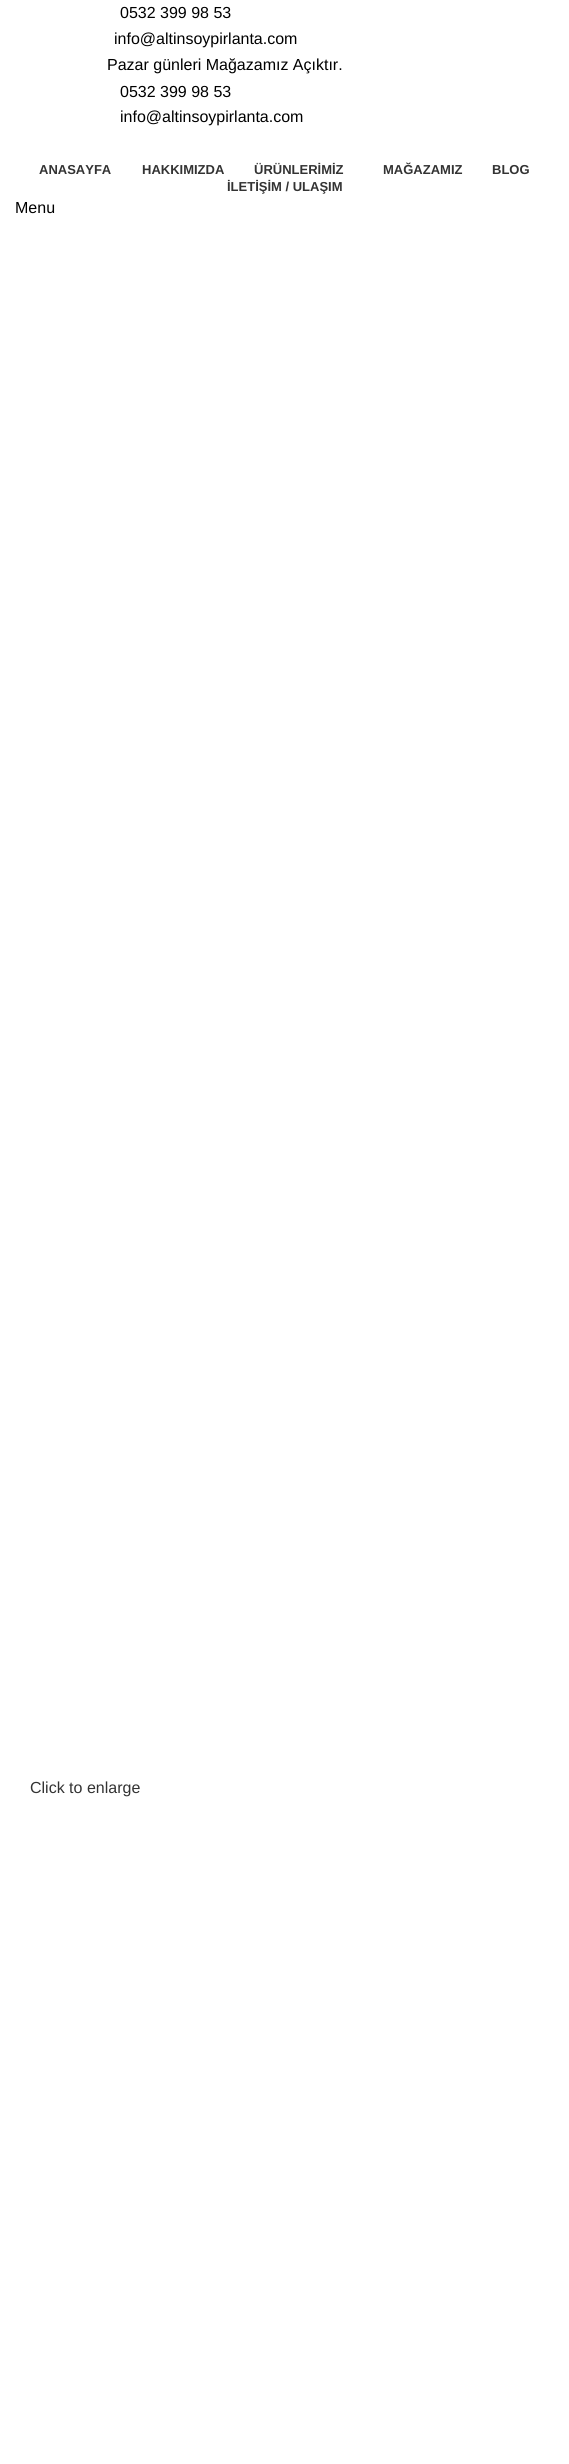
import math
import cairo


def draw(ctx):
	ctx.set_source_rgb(1, 1, 1)
	ctx.paint()
	ctx.select_font_face('Liberation Sans')
	ctx.set_font_size(16)
	ctx.set_source_rgb(0, 0, 0)
	for x, y, s in [
		(120, 18, '0532 399 98 53'),
		(114, 44, 'info@altinsoypirlanta.com'),
		(107, 70, 'Pazar günleri Mağazamız Açıktır.'),
		(120, 97, '0532 399 98 53'),
		(120, 122, 'info@altinsoypirlanta.com'),
	]:
		ctx.move_to(x, y)
		ctx.show_text(s)
	ctx.select_font_face('Liberation Sans', cairo.FONT_SLANT_NORMAL, cairo.FONT_WEIGHT_BOLD)
	ctx.set_font_size(13)
	ctx.set_source_rgb(0.2, 0.2, 0.2)
	for x, y, s in [
		(39, 174, 'ANASAYFA'),
		(142, 174, 'HAKKIMIZDA'),
		(254, 174, 'ÜRÜNLERİMİZ'),
		(383, 174, 'MAĞAZAMIZ'),
		(492, 174, 'BLOG'),
		(227, 191, 'İLETİŞİM / ULAŞIM'),
	]:
		ctx.move_to(x, y)
		ctx.show_text(s)
	ctx.select_font_face('Liberation Sans')
	ctx.set_font_size(16)
	ctx.set_source_rgb(0, 0, 0)
	ctx.move_to(15, 213)
	ctx.show_text('Menu')
	ctx.set_source_rgb(0.2, 0.2, 0.2)
	ctx.move_to(30, 1793)
	ctx.show_text('Click to enlarge')


surface = cairo.ImageSurface(cairo.FORMAT_RGB24, 569, 2464)
ctx = cairo.Context(surface)
options = cairo.FontOptions()
options.set_hint_metrics(cairo.HINT_METRICS_OFF)
options.set_hint_style(cairo.HINT_STYLE_NONE)
ctx.set_font_options(options)
ctx.set_miter_limit(4)
draw(ctx)
surface.write_to_png('image.png')
